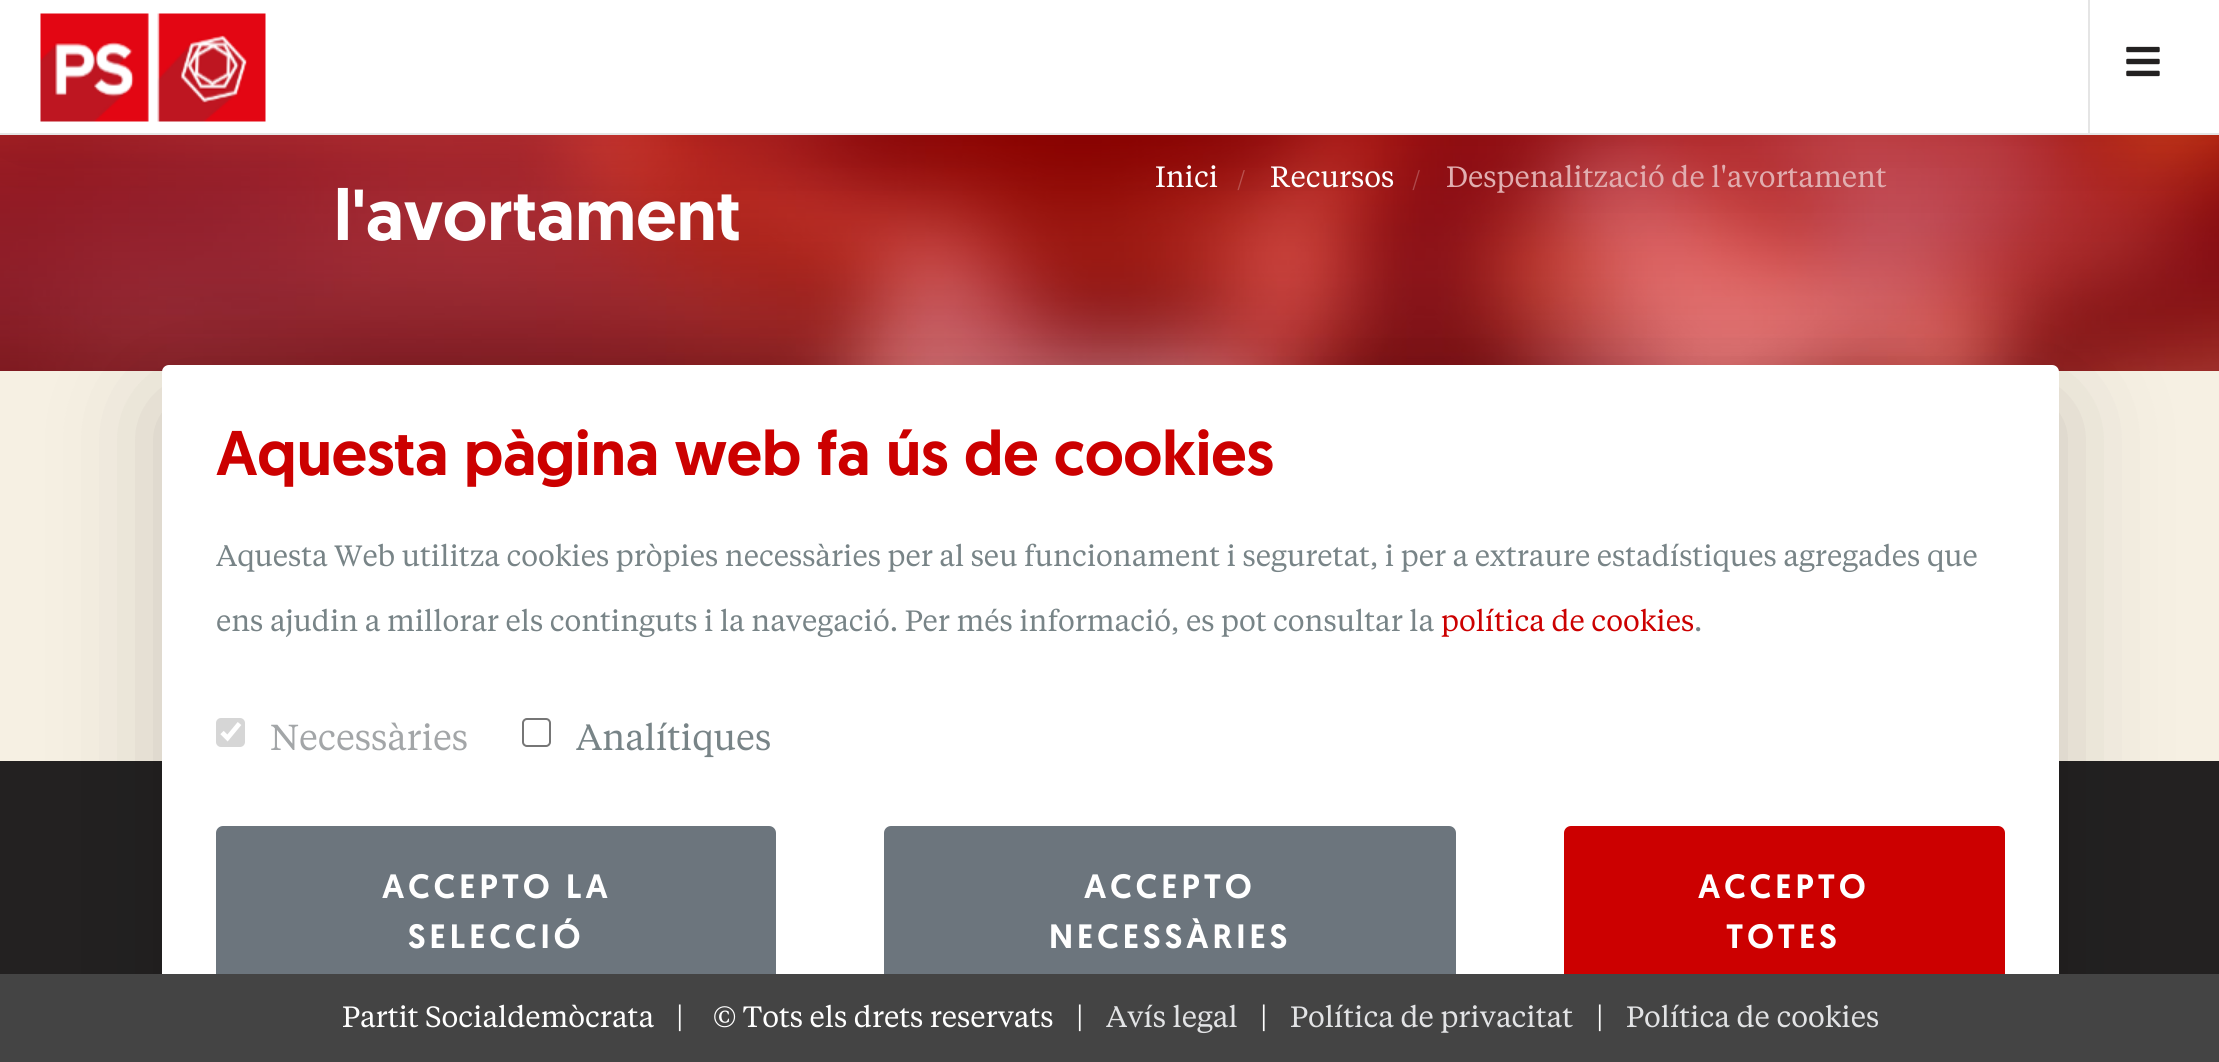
import math
import cairo


def write_spaced(ctx, x, y, s, letter, word):
	ctx.move_to(x, y)
	for ch in s:
		ctx.show_text(ch)
		ctx.rel_move_to(letter + word * (ch == ' '), 0)

def round_path(ctx, x, y, w, h, r):
	ctx.new_sub_path()
	for i, (u, v) in enumerate([(x + w - r, y + h - r), (x + r, y + h - r), (x + r, y + r), (x + w - r, y + r)]):
		ctx.arc(u, v, r, i * math.pi / 2, (i + 1) * math.pi / 2)
	ctx.close_path()

def blur_box(ctx, x, y, w, h, r, blur, alpha):
	ctx.push_group_with_content(cairo.CONTENT_ALPHA)
	ctx.set_operator(cairo.OPERATOR_SOURCE)
	for i in range(15, -16, -2):
		e = blur * i / 6
		if min(w, h) + 2 * e > 0:
			ctx.set_source_rgba(0, 0, 0, alpha * math.erfc((i - 1) / 8.5) / 2)
			round_path(ctx, x - e, y - e, w + 2 * e, h + 2 * e, max(0, min(r + e + blur * .6, min(w, h) / 2 + e)))
			ctx.fill()
	ctx.mask(ctx.pop_group())

def paste(ctx, path, x, y, w, h):
	ctx.save()
	ctx.set_source_surface(cairo.ImageSurface.create_from_png(path), x, y)
	ctx.rectangle(x, y, w, h)
	ctx.fill()
	ctx.restore()

def draw(ctx):
	ctx.set_source_rgb(0.961, 0.941, 0.89)
	ctx.paint()
	paste(ctx, 'media/3.png', 0, 135, 2219, 236)
	ctx.set_source_rgb(0, 0, 0)
	blur_box(ctx, 0, 0, 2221, 135, 0, 67.5, 0.07)
	ctx.set_source_rgb(1, 1, 1)
	ctx.rectangle(0, 0, 2219, 133)
	ctx.fill()
	ctx.set_source_rgb(0.898, 0.898, 0.898)
	ctx.rectangle(0, 133, 2219, 2)
	ctx.fill()
	paste(ctx, 'media/1.png', 40, 13, 226, 109)
	ctx.rectangle(2088, 0, 2, 133)
	ctx.fill()
	paste(ctx, 'media/2.png', 2126, 46, 34, 31)
	ctx.select_font_face('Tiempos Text')
	ctx.set_font_size(29.25)
	ctx.set_source_rgb(1, 1, 1)
	ctx.move_to(1155, 187)
	ctx.show_text('Inici')
	ctx.set_font_size(22)
	ctx.set_source_rgb(0.725, 0.322, 0.31)
	ctx.move_to(1237, 187)
	ctx.show_text('/')
	ctx.set_font_size(29.25)
	ctx.set_source_rgb(1, 1, 1)
	ctx.move_to(1270, 187)
	ctx.show_text('Recursos')
	ctx.set_font_size(22)
	ctx.set_source_rgb(0.686, 0.29, 0.298)
	ctx.move_to(1412, 187)
	ctx.show_text('/')
	ctx.set_font_size(29.25)
	ctx.set_source_rgb(0.882, 0.682, 0.69)
	ctx.move_to(1446, 187)
	ctx.show_text('Despenalització de l\'avortament')
	ctx.select_font_face('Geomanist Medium')
	ctx.set_font_size(72)
	ctx.set_source_rgb(1, 1, 1)
	ctx.move_to(334, 240)
	ctx.show_text('l\'avortament')
	ctx.set_source_rgb(0.137, 0.129, 0.129)
	ctx.rectangle(0, 761, 2219, 213)
	ctx.fill()
	ctx.set_source_rgb(0, 0, 0)
	blur_box(ctx, 162, 401, 1897, 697, 7, 54, 0.18)
	ctx.set_source_rgb(1, 1, 1)
	round_path(ctx, 162, 365, 1897, 697, 7)
	ctx.fill()
	ctx.set_font_size(63)
	ctx.set_source_rgb(0.8, 0, 0)
	ctx.move_to(216, 475)
	ctx.show_text('Aquesta pàgina web fa ús de cookies')
	ctx.select_font_face('Tiempos Text')
	ctx.set_font_size(29.25)
	ctx.set_source_rgb(0.471, 0.518, 0.529)
	ctx.move_to(216, 566)
	ctx.show_text('Aquesta Web utilitza cookies pròpies necessàries per al seu funcionament i seguretat, i per a extraure estadístiques agregades que')
	ctx.move_to(216, 631)
	ctx.show_text('ens ajudin a millorar els continguts i la navegació. Per més informació, es pot consultar la')
	ctx.set_source_rgb(0.8, 0, 0)
	ctx.move_to(1441, 631)
	ctx.show_text('política de cookies')
	ctx.set_source_rgb(0.471, 0.518, 0.529)
	ctx.move_to(1694, 631)
	ctx.show_text('.')
	ctx.set_source_rgb(0.839, 0.839, 0.839)
	round_path(ctx, 216, 718, 29, 29, 5)
	ctx.fill()
	ctx.new_path()
	ctx.move_to(222, 732.5)
	ctx.line_to(227.5, 738)
	ctx.line_to(239.5, 723.5)
	ctx.set_source_rgb(1, 1, 1)
	ctx.set_line_width(4.7)
	ctx.stroke()
	ctx.set_font_size(36)
	ctx.set_source_rgb(0.639, 0.651, 0.659)
	ctx.move_to(270, 750)
	ctx.show_text('Necessàries')
	round_path(ctx, 523, 719, 27, 27, 4)
	ctx.set_source_rgb(0.463, 0.463, 0.463)
	ctx.set_line_width(2)
	ctx.stroke()
	ctx.set_source_rgb(0.471, 0.518, 0.529)
	ctx.move_to(576, 750)
	ctx.show_text('Analítiques')
	ctx.set_source_rgb(0.424, 0.459, 0.49)
	round_path(ctx, 218.5, 828.5, 555, 177, 4.5)
	ctx.fill_preserve()
	ctx.set_line_width(5)
	ctx.stroke()
	ctx.select_font_face('Geomanist Medium')
	ctx.set_font_size(33.75)
	ctx.set_source_rgb(1, 1, 1)
	write_spaced(ctx, 382, 898, 'ACCEPTO LA', 4, 0)
	write_spaced(ctx, 408, 948, 'SELECCIÓ', 4, 0)
	ctx.set_source_rgb(0.424, 0.459, 0.49)
	round_path(ctx, 886.5, 828.5, 567, 177, 4.5)
	ctx.fill_preserve()
	ctx.stroke()
	ctx.set_source_rgb(1, 1, 1)
	write_spaced(ctx, 1084, 898, 'ACCEPTO', 4, 0)
	write_spaced(ctx, 1049, 948, 'NECESSÀRIES', 4, 0)
	ctx.set_source_rgb(0.8, 0, 0)
	round_path(ctx, 1566.5, 828.5, 436, 177, 4.5)
	ctx.fill_preserve()
	ctx.stroke()
	ctx.set_source_rgb(1, 1, 1)
	write_spaced(ctx, 1698, 898, 'ACCEPTO', 4, 0)
	write_spaced(ctx, 1726, 948, 'TOTES', 4, 0)
	ctx.set_source_rgb(0.267, 0.267, 0.267)
	ctx.rectangle(0, 974, 2219, 88)
	ctx.fill()
	ctx.select_font_face('Tiempos Text')
	ctx.set_font_size(29.25)
	ctx.set_source_rgb(1, 1, 1)
	for x, y, s in [
		(342, 1027, 'Partit Socialdemòcrata'),
		(676, 1027, '|'),
		(713, 1027, '© Tots els drets reservats'),
		(1076, 1027, '|'),
	]:
		ctx.move_to(x, y)
		ctx.show_text(s)
	ctx.set_source_rgb(0.886, 0.89, 0.898)
	ctx.move_to(1106, 1027)
	ctx.show_text('Avís legal')
	ctx.set_source_rgb(1, 1, 1)
	ctx.move_to(1260, 1027)
	ctx.show_text('|')
	ctx.set_source_rgb(0.886, 0.89, 0.898)
	ctx.move_to(1290, 1027)
	ctx.show_text('Política de privacitat')
	ctx.set_source_rgb(1, 1, 1)
	ctx.move_to(1596, 1027)
	ctx.show_text('|')
	ctx.set_source_rgb(0.886, 0.89, 0.898)
	ctx.move_to(1626, 1027)
	ctx.show_text('Política de cookies')


surface = cairo.ImageSurface(cairo.FORMAT_RGB24, 2219, 1062)
ctx = cairo.Context(surface)
options = cairo.FontOptions()
options.set_hint_metrics(cairo.HINT_METRICS_OFF)
options.set_hint_style(cairo.HINT_STYLE_NONE)
ctx.set_font_options(options)
ctx.set_miter_limit(4)
draw(ctx)
surface.write_to_png('image.png')
